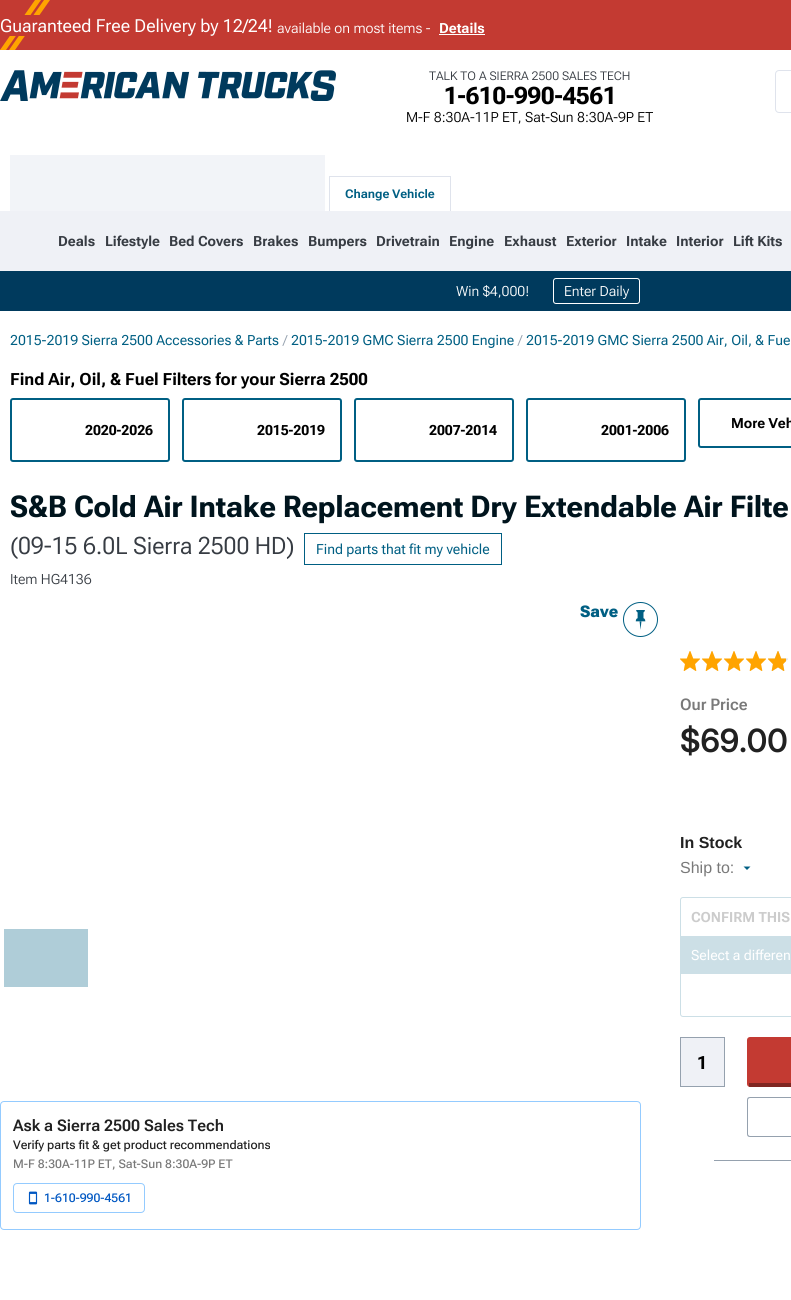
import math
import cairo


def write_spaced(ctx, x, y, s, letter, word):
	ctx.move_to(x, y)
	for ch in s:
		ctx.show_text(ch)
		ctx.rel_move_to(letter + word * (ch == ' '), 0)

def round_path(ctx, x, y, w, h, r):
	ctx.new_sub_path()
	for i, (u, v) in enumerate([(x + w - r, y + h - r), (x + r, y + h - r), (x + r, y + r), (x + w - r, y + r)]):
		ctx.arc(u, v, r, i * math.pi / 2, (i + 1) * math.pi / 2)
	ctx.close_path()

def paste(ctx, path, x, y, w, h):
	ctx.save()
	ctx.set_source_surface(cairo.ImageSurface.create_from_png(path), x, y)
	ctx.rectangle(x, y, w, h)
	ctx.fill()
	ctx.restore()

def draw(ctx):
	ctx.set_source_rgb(1, 1, 1)
	ctx.paint()
	ctx.set_source_rgb(0.765, 0.227, 0.196)
	ctx.rectangle(0, 0, 791, 50)
	ctx.fill()
	ctx.set_source_rgb(1, 0.643, 0)
	ctx.new_path()
	ctx.move_to(41, 0)
	ctx.line_to(6, 50)
	ctx.line_to(0, 50)
	ctx.line_to(35, 0)
	ctx.close_path()
	ctx.fill()
	ctx.new_path()
	ctx.move_to(50, 0)
	ctx.line_to(15, 50)
	ctx.line_to(9, 50)
	ctx.line_to(44, 0)
	ctx.close_path()
	ctx.fill()
	ctx.set_source_rgb(0.765, 0.227, 0.196)
	ctx.rectangle(9, 15, 31, 21)
	ctx.fill()
	ctx.select_font_face('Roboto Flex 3')
	ctx.set_font_size(18)
	ctx.set_source_rgb(1, 1, 1)
	ctx.move_to(0, 32)
	ctx.show_text('Guaranteed Free Delivery by 12/24!')
	ctx.select_font_face('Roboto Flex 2 Light')
	ctx.set_font_size(14)
	ctx.move_to(277, 33)
	ctx.show_text('available on most items -')
	ctx.select_font_face('Roboto Flex 2', cairo.FONT_SLANT_NORMAL, cairo.FONT_WEIGHT_BOLD)
	ctx.move_to(439, 33)
	ctx.show_text('Details')
	ctx.rectangle(439, 34, 46, 1)
	ctx.fill()
	paste(ctx, 'media/1.png', 0, 70, 336, 31)
	ctx.select_font_face('Roboto Flex Light')
	ctx.set_font_size(12)
	ctx.set_source_rgb(0.216, 0.235, 0.263)
	ctx.move_to(429, 80)
	ctx.show_text('TALK TO A SIERRA 2500 SALES TECH')
	ctx.select_font_face('Roboto Flex', cairo.FONT_SLANT_NORMAL, cairo.FONT_WEIGHT_BOLD)
	ctx.set_font_size(24)
	ctx.set_source_rgb(0, 0, 0)
	ctx.move_to(444, 104)
	ctx.show_text('1-610-990-4561')
	ctx.select_font_face('Roboto Flex 2 Light')
	ctx.set_font_size(14)
	ctx.move_to(406, 122)
	ctx.show_text('M-F 8:30A-11P ET, Sat-Sun 8:30A-9P ET')
	round_path(ctx, 775.5, 70.5, 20, 42, 3.5)
	ctx.set_source_rgb(0.875, 0.89, 0.922)
	ctx.set_line_width(1)
	ctx.stroke()
	ctx.set_source_rgb(0.949, 0.957, 0.969)
	ctx.rectangle(10, 155, 315, 56)
	ctx.fill()
	ctx.set_source_rgb(0.875, 0.89, 0.922)
	ctx.rectangle(329, 176, 122, 1)
	ctx.rectangle(450, 176, 1, 36)
	ctx.rectangle(329, 176, 1, 36)
	ctx.fill()
	ctx.select_font_face('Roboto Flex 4', cairo.FONT_SLANT_NORMAL, cairo.FONT_WEIGHT_BOLD)
	ctx.set_font_size(12)
	ctx.set_source_rgb(0, 0.373, 0.514)
	ctx.move_to(345, 198)
	ctx.show_text('Change Vehicle')
	ctx.set_source_rgb(0.937, 0.945, 0.961)
	ctx.rectangle(0, 211, 791, 60)
	ctx.fill()
	ctx.select_font_face('Roboto Flex 2', cairo.FONT_SLANT_NORMAL, cairo.FONT_WEIGHT_BOLD)
	ctx.set_font_size(14)
	ctx.set_source_rgb(0.216, 0.235, 0.263)
	for x, y, s in [
		(58, 246, 'Deals'),
		(105, 246, 'Lifestyle'),
		(169, 246, 'Bed Covers'),
		(253, 246, 'Brakes'),
		(308, 246, 'Bumpers'),
		(376, 246, 'Drivetrain'),
		(449, 246, 'Engine'),
		(504, 246, 'Exhaust'),
		(566, 246, 'Exterior'),
		(626, 246, 'Intake'),
		(676, 246, 'Interior'),
		(733, 246, 'Lift Kits'),
	]:
		ctx.move_to(x, y)
		ctx.show_text(s)
	ctx.set_source_rgb(0, 0.227, 0.365)
	ctx.rectangle(0, 271, 791, 40)
	ctx.fill()
	ctx.select_font_face('Roboto Flex 2 Light')
	ctx.set_source_rgb(1, 1, 1)
	ctx.move_to(456, 296)
	ctx.show_text('Win $4,000!')
	round_path(ctx, 553.5, 278.5, 86, 25, 2.5)
	ctx.stroke()
	ctx.move_to(564, 296)
	ctx.show_text('Enter Daily')
	ctx.select_font_face('Roboto Flex 2')
	ctx.set_source_rgb(0, 0.373, 0.514)
	ctx.move_to(10, 345)
	ctx.show_text('2015-2019 Sierra 2500 Accessories & Parts')
	ctx.select_font_face('Roboto Flex 2 Light')
	ctx.set_source_rgb(0.584, 0.631, 0.682)
	ctx.move_to(283, 345)
	ctx.show_text('/')
	ctx.select_font_face('Roboto Flex 2')
	ctx.set_source_rgb(0, 0.373, 0.514)
	ctx.move_to(291, 345)
	ctx.show_text('2015-2019 GMC Sierra 2500 Engine')
	ctx.select_font_face('Roboto Flex 2 Light')
	ctx.set_source_rgb(0.584, 0.631, 0.682)
	ctx.move_to(518, 345)
	ctx.show_text('/')
	ctx.select_font_face('Roboto Flex 2')
	ctx.set_source_rgb(0, 0.373, 0.514)
	ctx.move_to(526, 345)
	ctx.show_text('2015-2019 GMC Sierra 2500 Air, Oil, & Fue')
	ctx.select_font_face('Roboto Flex 2', cairo.FONT_SLANT_NORMAL, cairo.FONT_WEIGHT_BOLD)
	ctx.set_font_size(16.8)
	ctx.set_source_rgb(0, 0, 0)
	write_spaced(ctx, 10, 385, 'Find Air, Oil, & Fuel Filters for your Sierra 2500', 0, -0.25)
	round_path(ctx, 11, 399, 158, 62, 2)
	ctx.set_source_rgb(0, 0.373, 0.514)
	ctx.set_line_width(2)
	ctx.stroke()
	ctx.set_font_size(14)
	ctx.set_source_rgb(0, 0, 0)
	ctx.move_to(85, 435)
	ctx.show_text('2020-2026')
	round_path(ctx, 183, 399, 158, 62, 2)
	ctx.set_source_rgb(0, 0.373, 0.514)
	ctx.stroke()
	ctx.set_source_rgb(0, 0, 0)
	ctx.move_to(257, 435)
	ctx.show_text('2015-2019')
	round_path(ctx, 355, 399, 158, 62, 2)
	ctx.set_source_rgb(0, 0.373, 0.514)
	ctx.stroke()
	ctx.set_source_rgb(0, 0, 0)
	ctx.move_to(429, 435)
	ctx.show_text('2007-2014')
	round_path(ctx, 527, 399, 158, 62, 2)
	ctx.set_source_rgb(0, 0.373, 0.514)
	ctx.stroke()
	ctx.set_source_rgb(0, 0, 0)
	ctx.move_to(601, 435)
	ctx.show_text('2001-2006')
	round_path(ctx, 699, 399, 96, 48, 2)
	ctx.set_source_rgb(0, 0.373, 0.514)
	ctx.stroke()
	ctx.set_source_rgb(0, 0, 0)
	ctx.move_to(731, 428)
	ctx.show_text('More Veh')
	ctx.select_font_face('Roboto Flex 3', cairo.FONT_SLANT_NORMAL, cairo.FONT_WEIGHT_BOLD)
	ctx.set_font_size(30)
	ctx.set_source_rgb(0, 0.082, 0.114)
	ctx.move_to(10, 517)
	ctx.show_text('S&B Cold Air Intake Replacement Dry Extendable Air Filte')
	ctx.select_font_face('Roboto Flex')
	ctx.set_font_size(24)
	ctx.set_source_rgb(0.216, 0.235, 0.263)
	ctx.move_to(10, 554)
	ctx.show_text('(09-15 6.0L Sierra 2500 HD)')
	ctx.rectangle(304.5, 533.5, 197, 31)
	ctx.set_source_rgb(0, 0.373, 0.514)
	ctx.set_line_width(1)
	ctx.stroke()
	ctx.select_font_face('Roboto Flex 2')
	ctx.set_font_size(14)
	ctx.move_to(316, 554)
	ctx.show_text('Find parts that fit my vehicle')
	ctx.select_font_face('Roboto Flex 2 Light')
	ctx.set_source_rgb(0.216, 0.235, 0.263)
	ctx.move_to(10, 584)
	ctx.show_text('Item HG4136')
	ctx.select_font_face('Roboto Flex Black')
	ctx.set_font_size(16)
	ctx.set_source_rgb(0, 0.373, 0.514)
	ctx.move_to(580, 617)
	ctx.show_text('Save')
	paste(ctx, 'media/2.png', 635, 610, 11, 20)
	ctx.arc(640.5, 619.5, 17, 0, 2 * math.pi)
	ctx.stroke()
	ctx.set_source_rgb(0.686, 0.804, 0.847)
	ctx.rectangle(4, 929, 84, 58)
	ctx.fill()
	round_path(ctx, 0.5, 1101.5, 640, 128, 3.5)
	ctx.set_source_rgb(0.58, 0.796, 1)
	ctx.stroke()
	ctx.select_font_face('Roboto Flex SemiBold')
	ctx.set_source_rgb(0.129, 0.129, 0.129)
	ctx.move_to(13, 1131)
	ctx.show_text('Ask a Sierra 2500 Sales Tech')
	ctx.select_font_face('Roboto Flex Medium')
	ctx.set_font_size(12)
	ctx.move_to(13, 1149)
	ctx.show_text('Verify parts fit & get product recommendations')
	ctx.set_source_rgb(0.475, 0.475, 0.475)
	ctx.move_to(13, 1168)
	ctx.show_text('M-F 8:30A-11P ET, Sat-Sun 8:30A-9P ET')
	round_path(ctx, 13.5, 1183.5, 131, 29, 3.5)
	ctx.set_source_rgb(0.58, 0.796, 1)
	ctx.stroke()
	paste(ctx, 'media/3.png', 28, 1191, 10, 14)
	ctx.set_source_rgb(0, 0.341, 0.761)
	ctx.move_to(44, 1202)
	ctx.show_text('1-610-990-4561')
	paste(ctx, 'media/4.png', 680, 651, 108, 20)
	ctx.select_font_face('Roboto Flex SemiBold')
	ctx.set_font_size(16)
	ctx.set_source_rgb(0.475, 0.475, 0.475)
	ctx.move_to(680, 710)
	ctx.show_text('Our Price')
	ctx.select_font_face('Inter SemiBold')
	ctx.set_font_size(32)
	ctx.set_source_rgb(0.129, 0.129, 0.129)
	ctx.move_to(680, 752)
	ctx.show_text('$69.00')
	ctx.select_font_face('Liberation Sans', cairo.FONT_SLANT_NORMAL, cairo.FONT_WEIGHT_BOLD)
	ctx.set_font_size(16)
	ctx.move_to(680, 848)
	ctx.show_text('In Stock')
	ctx.select_font_face('Liberation Sans')
	ctx.set_source_rgb(0.475, 0.475, 0.475)
	ctx.move_to(680, 873)
	ctx.show_text('Ship to:')
	ctx.set_source_rgb(0, 0.373, 0.514)
	ctx.new_path()
	ctx.move_to(743.5, 866.5)
	ctx.line_to(747, 870)
	ctx.line_to(750.5, 866.5)
	ctx.close_path()
	ctx.fill()
	round_path(ctx, 680.5, 897.5, 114, 119, 2.5)
	ctx.set_source_rgb(0.8, 0.875, 0.902)
	ctx.stroke()
	ctx.select_font_face('Roboto Flex 2', cairo.FONT_SLANT_NORMAL, cairo.FONT_WEIGHT_BOLD)
	ctx.set_font_size(14)
	ctx.set_source_rgb(0.8, 0.8, 0.8)
	ctx.move_to(691, 922)
	ctx.show_text('CONFIRM THIS')
	ctx.set_source_rgb(0.8, 0.875, 0.902)
	ctx.rectangle(681, 936, 110, 38)
	ctx.fill()
	ctx.select_font_face('Roboto Flex 2')
	ctx.set_source_rgb(1, 1, 1)
	ctx.move_to(691, 960)
	ctx.show_text('Select a differen')
	ctx.set_source_rgb(0.937, 0.945, 0.961)
	ctx.rectangle(680.5, 1037.5, 44, 49)
	ctx.fill_preserve()
	ctx.set_source_rgb(0.584, 0.631, 0.682)
	ctx.stroke()
	ctx.select_font_face('Roboto Flex 2', cairo.FONT_SLANT_NORMAL, cairo.FONT_WEIGHT_BOLD)
	ctx.set_font_size(18)
	ctx.set_source_rgb(0, 0, 0)
	ctx.move_to(697, 1069)
	ctx.show_text('1')
	ctx.set_source_rgb(0.765, 0.227, 0.196)
	round_path(ctx, 747, 1037, 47, 50, 3)
	ctx.fill()
	ctx.set_source_rgba(0, 0, 0, 0.35)
	ctx.rectangle(749, 1083, 42, 4)
	ctx.fill()
	ctx.set_source_rgb(0.584, 0.631, 0.682)
	ctx.set_fill_rule(cairo.FILL_RULE_EVEN_ODD)
	ctx.new_path()
	ctx.move_to(750, 1097)
	ctx.line_to(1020, 1097)
	ctx.line_to(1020, 1137)
	ctx.line_to(750, 1137)
	ctx.curve_to(748, 1137, 747, 1136, 747, 1134)
	ctx.line_to(747, 1100)
	ctx.curve_to(747, 1098, 748, 1097, 750, 1097)
	ctx.close_path()
	ctx.move_to(750, 1098)
	ctx.line_to(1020, 1098)
	ctx.line_to(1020, 1136)
	ctx.line_to(750, 1136)
	ctx.curve_to(749, 1136, 748, 1135, 748, 1134)
	ctx.line_to(748, 1100)
	ctx.curve_to(748, 1099, 749, 1098, 750, 1098)
	ctx.close_path()
	ctx.fill()
	ctx.rectangle(714, 1160, 77, 1)
	ctx.fill()


surface = cairo.ImageSurface(cairo.FORMAT_RGB24, 791, 1300)
ctx = cairo.Context(surface)
options = cairo.FontOptions()
options.set_hint_metrics(cairo.HINT_METRICS_OFF)
options.set_hint_style(cairo.HINT_STYLE_NONE)
ctx.set_font_options(options)
ctx.set_miter_limit(4)
draw(ctx)
surface.write_to_png('image.png')
